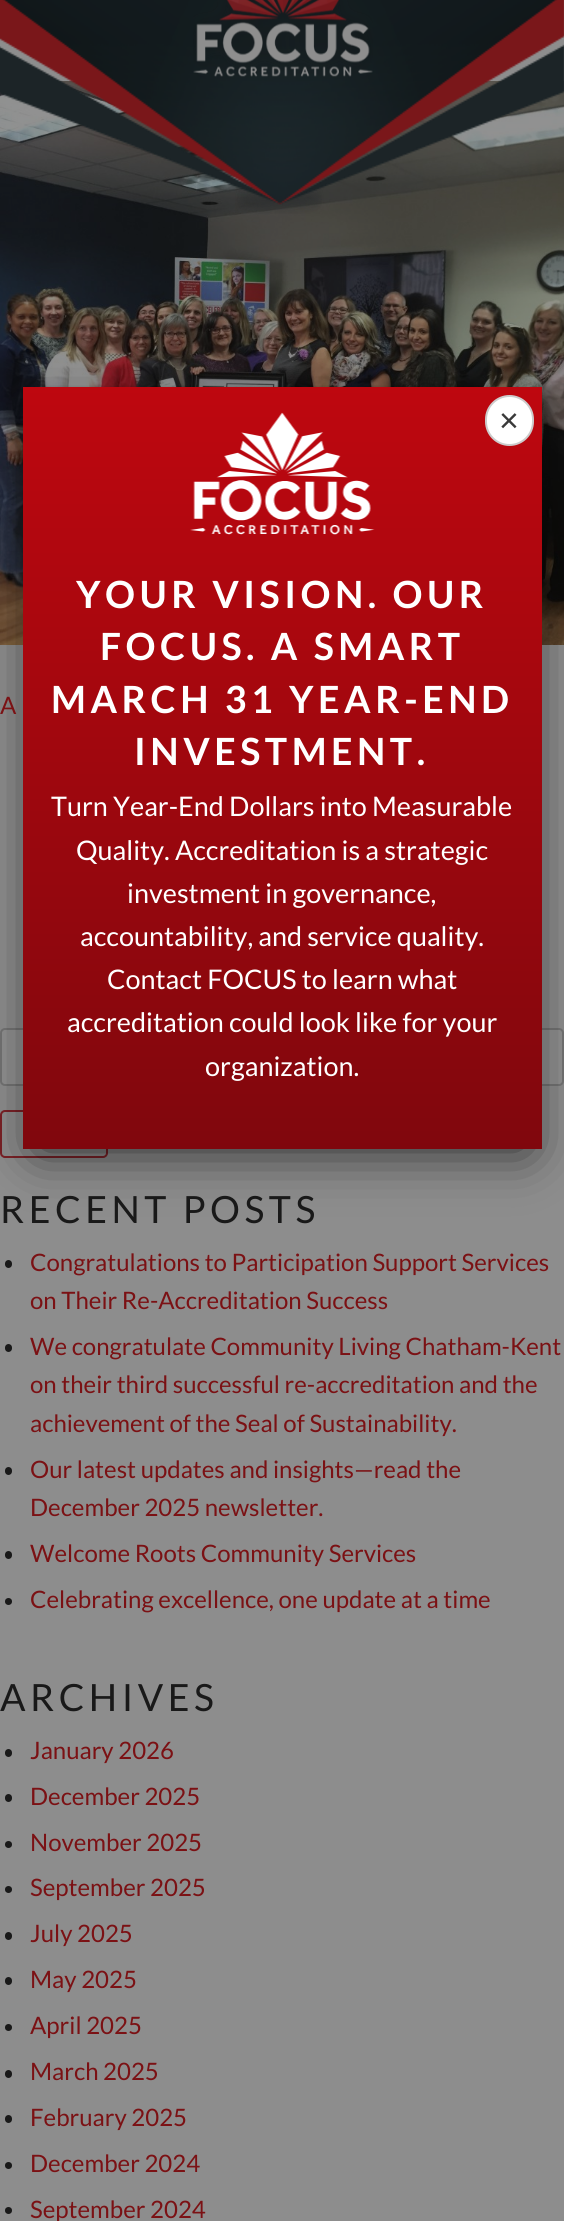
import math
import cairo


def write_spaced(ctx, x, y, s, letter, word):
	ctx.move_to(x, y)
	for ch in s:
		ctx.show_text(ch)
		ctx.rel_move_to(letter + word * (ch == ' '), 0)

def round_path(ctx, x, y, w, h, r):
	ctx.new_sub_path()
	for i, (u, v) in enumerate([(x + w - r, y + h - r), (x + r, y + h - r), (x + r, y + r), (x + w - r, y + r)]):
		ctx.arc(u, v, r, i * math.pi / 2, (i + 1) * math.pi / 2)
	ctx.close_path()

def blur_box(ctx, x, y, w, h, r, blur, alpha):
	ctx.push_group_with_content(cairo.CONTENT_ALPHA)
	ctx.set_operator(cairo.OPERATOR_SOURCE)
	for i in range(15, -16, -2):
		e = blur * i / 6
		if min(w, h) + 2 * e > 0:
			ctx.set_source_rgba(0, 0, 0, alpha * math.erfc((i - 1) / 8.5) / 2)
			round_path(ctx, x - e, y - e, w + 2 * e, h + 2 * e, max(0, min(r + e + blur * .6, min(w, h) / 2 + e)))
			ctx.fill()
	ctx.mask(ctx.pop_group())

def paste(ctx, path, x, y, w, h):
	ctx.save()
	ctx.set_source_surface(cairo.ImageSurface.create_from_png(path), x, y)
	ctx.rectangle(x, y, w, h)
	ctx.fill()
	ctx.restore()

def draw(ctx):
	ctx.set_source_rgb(0.553, 0.553, 0.553)
	ctx.paint()
	paste(ctx, 'media/4.png', 0, 81, 564, 564)
	ctx.set_source_rgb(0.565, 0.565, 0.565)
	round_path(ctx, 1, 1029, 562, 56, 4)
	ctx.fill_preserve()
	ctx.set_source_rgb(0.455, 0.455, 0.455)
	ctx.stroke()
	round_path(ctx, 1, 1111, 106, 46, 4)
	ctx.set_source_rgb(0.482, 0.129, 0.149)
	ctx.stroke()
	ctx.set_source_rgb(0, 0, 0)
	blur_box(ctx, 38, 417, 489, 732, 0, 27, 0.75)
	gradient = cairo.LinearGradient(282, 387, 282, 1149)
	gradient.add_color_stop_rgba(0, 0.745, 0.027, 0.059, 1)
	gradient.add_color_stop_rgba(1, 0.502, 0.027, 0.051, 1)
	ctx.set_source(gradient)
	ctx.rectangle(23, 387, 519, 762)
	ctx.fill()
	ctx.set_source_rgb(1, 1, 1)
	round_path(ctx, 486, 396, 47, 49, 23.5)
	ctx.fill_preserve()
	ctx.set_source_rgb(0.8, 0.8, 0.8)
	ctx.stroke()
	ctx.select_font_face('Liberation Sans')
	ctx.set_font_size(34)
	ctx.set_source_rgb(0.227, 0.227, 0.227)
	ctx.move_to(499, 432)
	ctx.show_text('×')
	paste(ctx, 'media/1.png', 190, 412, 185, 123)
	ctx.select_font_face('Lato', cairo.FONT_SLANT_NORMAL, cairo.FONT_WEIGHT_BOLD)
	ctx.set_font_size(37.5)
	ctx.set_source_rgb(1, 1, 1)
	for x, y, s in [
		(76, 608, 'YOUR VISION. OUR'),
		(100, 660, 'FOCUS. A SMART'),
		(51, 713, 'MARCH 31 YEAR-END'),
		(134, 765, 'INVESTMENT.'),
	]:
		write_spaced(ctx, x, y, s, 4.5, 0)
	ctx.select_font_face('Lato')
	ctx.set_font_size(27)
	for x, y, s in [
		(51, 816, 'Turn Year-End Dollars into Measurable'),
		(76, 860, 'Quality. Accreditation is a strategic'),
		(127, 903, 'investment in governance,'),
		(80, 946, 'accountability, and service quality.'),
		(107, 989, 'Contact FOCUS to learn what'),
		(67, 1032, 'accreditation could look like for your'),
		(205, 1076, 'organization.'),
	]:
		ctx.move_to(x, y)
		ctx.show_text(s)
	paste(ctx, 'media/2.png', 0, 0, 564, 214)
	paste(ctx, 'media/3.png', 193, 0, 180, 77)
	ctx.set_font_size(24)
	ctx.set_source_rgb(0.482, 0.067, 0.082)
	ctx.move_to(0, 714)
	ctx.show_text('A')
	ctx.set_font_size(37.5)
	ctx.set_source_rgb(0.098, 0.098, 0.098)
	write_spaced(ctx, 0, 1223, 'RECENT POSTS', 4.5, 0)
	round_path(ctx, 5, 1260, 7, 8, 3.5)
	ctx.fill()
	ctx.set_font_size(24)
	ctx.set_source_rgb(0.482, 0.067, 0.082)
	ctx.move_to(30, 1271)
	ctx.show_text('Congratulations to Participation Support Services')
	ctx.move_to(30, 1309)
	ctx.show_text('on Their Re-Accreditation Success')
	ctx.set_source_rgb(0.098, 0.098, 0.098)
	round_path(ctx, 5, 1344, 7, 8, 3.5)
	ctx.fill()
	ctx.set_source_rgb(0.482, 0.067, 0.082)
	for x, y, s in [
		(30, 1355, 'We congratulate Community Living Chatham-Kent'),
		(30, 1393, 'on their third successful re-accreditation and the'),
		(30, 1432, 'achievement of the Seal of Sustainability.'),
	]:
		ctx.move_to(x, y)
		ctx.show_text(s)
	ctx.set_source_rgb(0.098, 0.098, 0.098)
	round_path(ctx, 5, 1467, 7, 8, 3.5)
	ctx.fill()
	ctx.set_source_rgb(0.482, 0.067, 0.082)
	ctx.move_to(30, 1478)
	ctx.show_text('Our latest updates and insights—read the')
	ctx.move_to(30, 1516)
	ctx.show_text('December 2025 newsletter.')
	ctx.set_source_rgb(0.098, 0.098, 0.098)
	round_path(ctx, 5, 1551, 7, 8, 3.5)
	ctx.fill()
	ctx.set_source_rgb(0.482, 0.067, 0.082)
	ctx.move_to(30, 1562)
	ctx.show_text('Welcome Roots Community Services')
	ctx.set_source_rgb(0.098, 0.098, 0.098)
	ctx.new_path()
	ctx.arc(8.5, 1601.5, 3.5, 0, 2 * math.pi)
	ctx.fill()
	ctx.set_source_rgb(0.482, 0.067, 0.082)
	ctx.move_to(30, 1608)
	ctx.show_text('Celebrating excellence, one update at a time')
	ctx.set_font_size(37.5)
	ctx.set_source_rgb(0.098, 0.098, 0.098)
	write_spaced(ctx, 0, 1711, 'ARCHIVES', 4.5, 0)
	round_path(ctx, 5, 1749, 7, 8, 3.5)
	ctx.fill()
	ctx.set_font_size(24)
	ctx.set_source_rgb(0.482, 0.067, 0.082)
	ctx.move_to(30, 1759)
	ctx.show_text('January 2026')
	ctx.set_source_rgb(0.098, 0.098, 0.098)
	round_path(ctx, 5, 1794, 7, 8, 3.5)
	ctx.fill()
	ctx.set_source_rgb(0.482, 0.067, 0.082)
	ctx.move_to(30, 1805)
	ctx.show_text('December 2025')
	ctx.set_source_rgb(0.098, 0.098, 0.098)
	ctx.new_path()
	ctx.arc(8.5, 1844.5, 3.5, 0, 2 * math.pi)
	ctx.fill()
	ctx.set_source_rgb(0.482, 0.067, 0.082)
	ctx.move_to(30, 1851)
	ctx.show_text('November 2025')
	ctx.set_source_rgb(0.098, 0.098, 0.098)
	ctx.new_path()
	ctx.arc(8.5, 1889.5, 3.5, 0, 2 * math.pi)
	ctx.fill()
	ctx.set_source_rgb(0.482, 0.067, 0.082)
	ctx.move_to(30, 1896)
	ctx.show_text('September 2025')
	ctx.set_source_rgb(0.098, 0.098, 0.098)
	round_path(ctx, 5, 1932, 7, 8, 3.5)
	ctx.fill()
	ctx.set_source_rgb(0.482, 0.067, 0.082)
	ctx.move_to(30, 1942)
	ctx.show_text('July 2025')
	ctx.set_source_rgb(0.098, 0.098, 0.098)
	round_path(ctx, 5, 1977, 7, 8, 3.5)
	ctx.fill()
	ctx.set_source_rgb(0.482, 0.067, 0.082)
	ctx.move_to(30, 1988)
	ctx.show_text('May 2025')
	ctx.set_source_rgb(0.098, 0.098, 0.098)
	ctx.new_path()
	ctx.arc(8.5, 2027.5, 3.5, 0, 2 * math.pi)
	ctx.fill()
	ctx.set_source_rgb(0.482, 0.067, 0.082)
	ctx.move_to(30, 2034)
	ctx.show_text('April 2025')
	ctx.set_source_rgb(0.098, 0.098, 0.098)
	round_path(ctx, 5, 2070, 7, 8, 3.5)
	ctx.fill()
	ctx.set_source_rgb(0.482, 0.067, 0.082)
	ctx.move_to(30, 2080)
	ctx.show_text('March 2025')
	ctx.set_source_rgb(0.098, 0.098, 0.098)
	round_path(ctx, 5, 2115, 7, 8, 3.5)
	ctx.fill()
	ctx.set_source_rgb(0.482, 0.067, 0.082)
	ctx.move_to(30, 2126)
	ctx.show_text('February 2025')
	ctx.set_source_rgb(0.098, 0.098, 0.098)
	ctx.new_path()
	ctx.arc(8.5, 2165.5, 3.5, 0, 2 * math.pi)
	ctx.fill()
	ctx.set_source_rgb(0.482, 0.067, 0.082)
	ctx.move_to(30, 2172)
	ctx.show_text('December 2024')
	ctx.set_source_rgb(0.098, 0.098, 0.098)
	ctx.new_path()
	ctx.arc(8.5, 2210.5, 3.5, 0, 2 * math.pi)
	ctx.fill()
	ctx.set_source_rgb(0.482, 0.067, 0.082)
	ctx.move_to(30, 2218)
	ctx.show_text('September 2024')


surface = cairo.ImageSurface(cairo.FORMAT_RGB24, 564, 2221)
ctx = cairo.Context(surface)
options = cairo.FontOptions()
options.set_hint_metrics(cairo.HINT_METRICS_OFF)
options.set_hint_style(cairo.HINT_STYLE_NONE)
ctx.set_font_options(options)
ctx.set_miter_limit(4)
draw(ctx)
surface.write_to_png('image.png')
